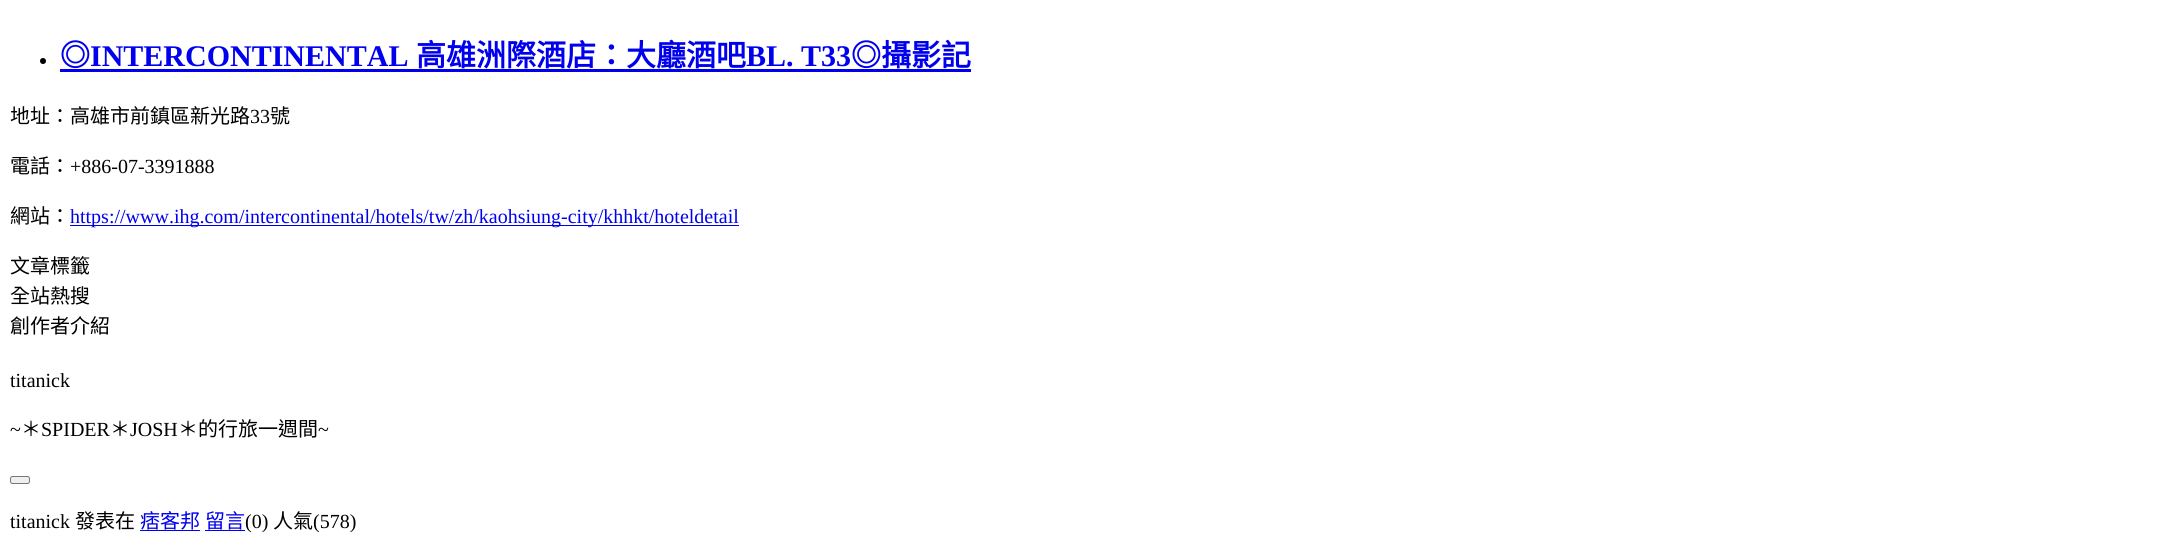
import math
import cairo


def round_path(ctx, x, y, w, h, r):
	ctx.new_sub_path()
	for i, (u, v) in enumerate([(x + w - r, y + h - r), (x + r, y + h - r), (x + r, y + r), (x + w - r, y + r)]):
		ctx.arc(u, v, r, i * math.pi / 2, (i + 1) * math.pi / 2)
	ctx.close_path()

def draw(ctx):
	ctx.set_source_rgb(1, 1, 1)
	ctx.paint()
	ctx.set_source_rgb(0, 0, 0)
	ctx.arc(43, 61, 3, 0, 2 * math.pi)
	ctx.fill()
	ctx.select_font_face('Noto Sans CJK TC', cairo.FONT_SLANT_NORMAL, cairo.FONT_WEIGHT_BOLD)
	ctx.set_font_size(30)
	ctx.set_source_rgb(0, 0, 0.933)
	ctx.move_to(60, 66)
	ctx.show_text('◎')
	ctx.select_font_face('Liberation Serif', cairo.FONT_SLANT_NORMAL, cairo.FONT_WEIGHT_BOLD)
	ctx.move_to(90, 66)
	ctx.show_text('INTERCONTINENTAL')
	ctx.rectangle(60, 69, 911, 3)
	ctx.fill()
	ctx.select_font_face('Noto Sans CJK TC', cairo.FONT_SLANT_NORMAL, cairo.FONT_WEIGHT_BOLD)
	ctx.move_to(416, 66)
	ctx.show_text('高雄洲際酒店：大廳酒吧')
	ctx.select_font_face('Liberation Serif', cairo.FONT_SLANT_NORMAL, cairo.FONT_WEIGHT_BOLD)
	ctx.move_to(746, 66)
	ctx.show_text('BL. T33')
	ctx.select_font_face('Noto Sans CJK TC', cairo.FONT_SLANT_NORMAL, cairo.FONT_WEIGHT_BOLD)
	ctx.move_to(851, 66)
	ctx.show_text('◎攝影記')
	ctx.select_font_face('Noto Sans CJK TC')
	ctx.set_font_size(20)
	ctx.set_source_rgb(0, 0, 0)
	ctx.move_to(10, 123)
	ctx.show_text('地址：高雄市前鎮區新光路')
	ctx.select_font_face('Liberation Serif')
	ctx.move_to(250, 123)
	ctx.show_text('33')
	ctx.select_font_face('Noto Sans CJK TC')
	ctx.move_to(270, 123)
	ctx.show_text('號')
	ctx.move_to(10, 173)
	ctx.show_text('電話：')
	ctx.select_font_face('Liberation Serif')
	ctx.move_to(70, 173)
	ctx.show_text('+886-07-3391888')
	ctx.select_font_face('Noto Sans CJK TC')
	ctx.move_to(10, 223)
	ctx.show_text('網站：')
	ctx.set_source_rgb(0, 0, 0.933)
	ctx.rectangle(70, 225, 669, 1)
	ctx.fill()
	ctx.select_font_face('Liberation Serif')
	ctx.move_to(70, 223)
	ctx.show_text('https://www.ihg.com/intercontinental/hotels/tw/zh/kaohsiung-city/khhkt/hoteldetail')
	ctx.select_font_face('Noto Sans CJK TC')
	ctx.set_source_rgb(0, 0, 0)
	for x, y, s in [
		(10, 273, '文章標籤'),
		(10, 303, '全站熱搜'),
		(10, 333, '創作者介紹'),
	]:
		ctx.move_to(x, y)
		ctx.show_text(s)
	ctx.select_font_face('Liberation Serif')
	ctx.move_to(10, 387)
	ctx.show_text('titanick')
	ctx.move_to(10, 436)
	ctx.show_text('~')
	ctx.select_font_face('Noto Sans CJK TC')
	ctx.move_to(21, 436)
	ctx.show_text('＊')
	ctx.select_font_face('Liberation Serif')
	ctx.move_to(41, 436)
	ctx.show_text('SPIDER')
	ctx.select_font_face('Noto Sans CJK TC')
	ctx.move_to(110, 436)
	ctx.show_text('＊')
	ctx.select_font_face('Liberation Serif')
	ctx.move_to(130, 436)
	ctx.show_text('JOSH')
	ctx.select_font_face('Noto Sans CJK TC')
	ctx.move_to(178, 436)
	ctx.show_text('＊的行旅一週間')
	ctx.select_font_face('Liberation Serif')
	ctx.move_to(318, 436)
	ctx.show_text('~')
	ctx.set_source_rgb(0.937, 0.937, 0.937)
	round_path(ctx, 10.5, 476.5, 19, 7, 2)
	ctx.fill_preserve()
	ctx.set_source_rgb(0.463, 0.463, 0.463)
	ctx.set_line_width(1)
	ctx.stroke()
	ctx.set_source_rgb(0, 0, 0)
	ctx.move_to(10, 528)
	ctx.show_text('titanick')
	ctx.select_font_face('Noto Sans CJK TC')
	ctx.move_to(75, 528)
	ctx.show_text('發表在')
	ctx.set_source_rgb(0, 0, 0.933)
	ctx.move_to(140, 528)
	ctx.show_text('痞客邦')
	ctx.rectangle(140, 530, 60, 1)
	ctx.fill()
	ctx.move_to(205, 528)
	ctx.show_text('留言')
	ctx.rectangle(205, 530, 40, 1)
	ctx.fill()
	ctx.select_font_face('Liberation Serif')
	ctx.set_source_rgb(0, 0, 0)
	ctx.move_to(245, 528)
	ctx.show_text('(0)')
	ctx.select_font_face('Noto Sans CJK TC')
	ctx.move_to(273, 528)
	ctx.show_text('人氣')
	ctx.select_font_face('Liberation Serif')
	ctx.move_to(313, 528)
	ctx.show_text('(578)')


surface = cairo.ImageSurface(cairo.FORMAT_RGB24, 2179, 533)
ctx = cairo.Context(surface)
options = cairo.FontOptions()
options.set_hint_metrics(cairo.HINT_METRICS_OFF)
options.set_hint_style(cairo.HINT_STYLE_NONE)
ctx.set_font_options(options)
ctx.set_miter_limit(4)
draw(ctx)
surface.write_to_png('image.png')
